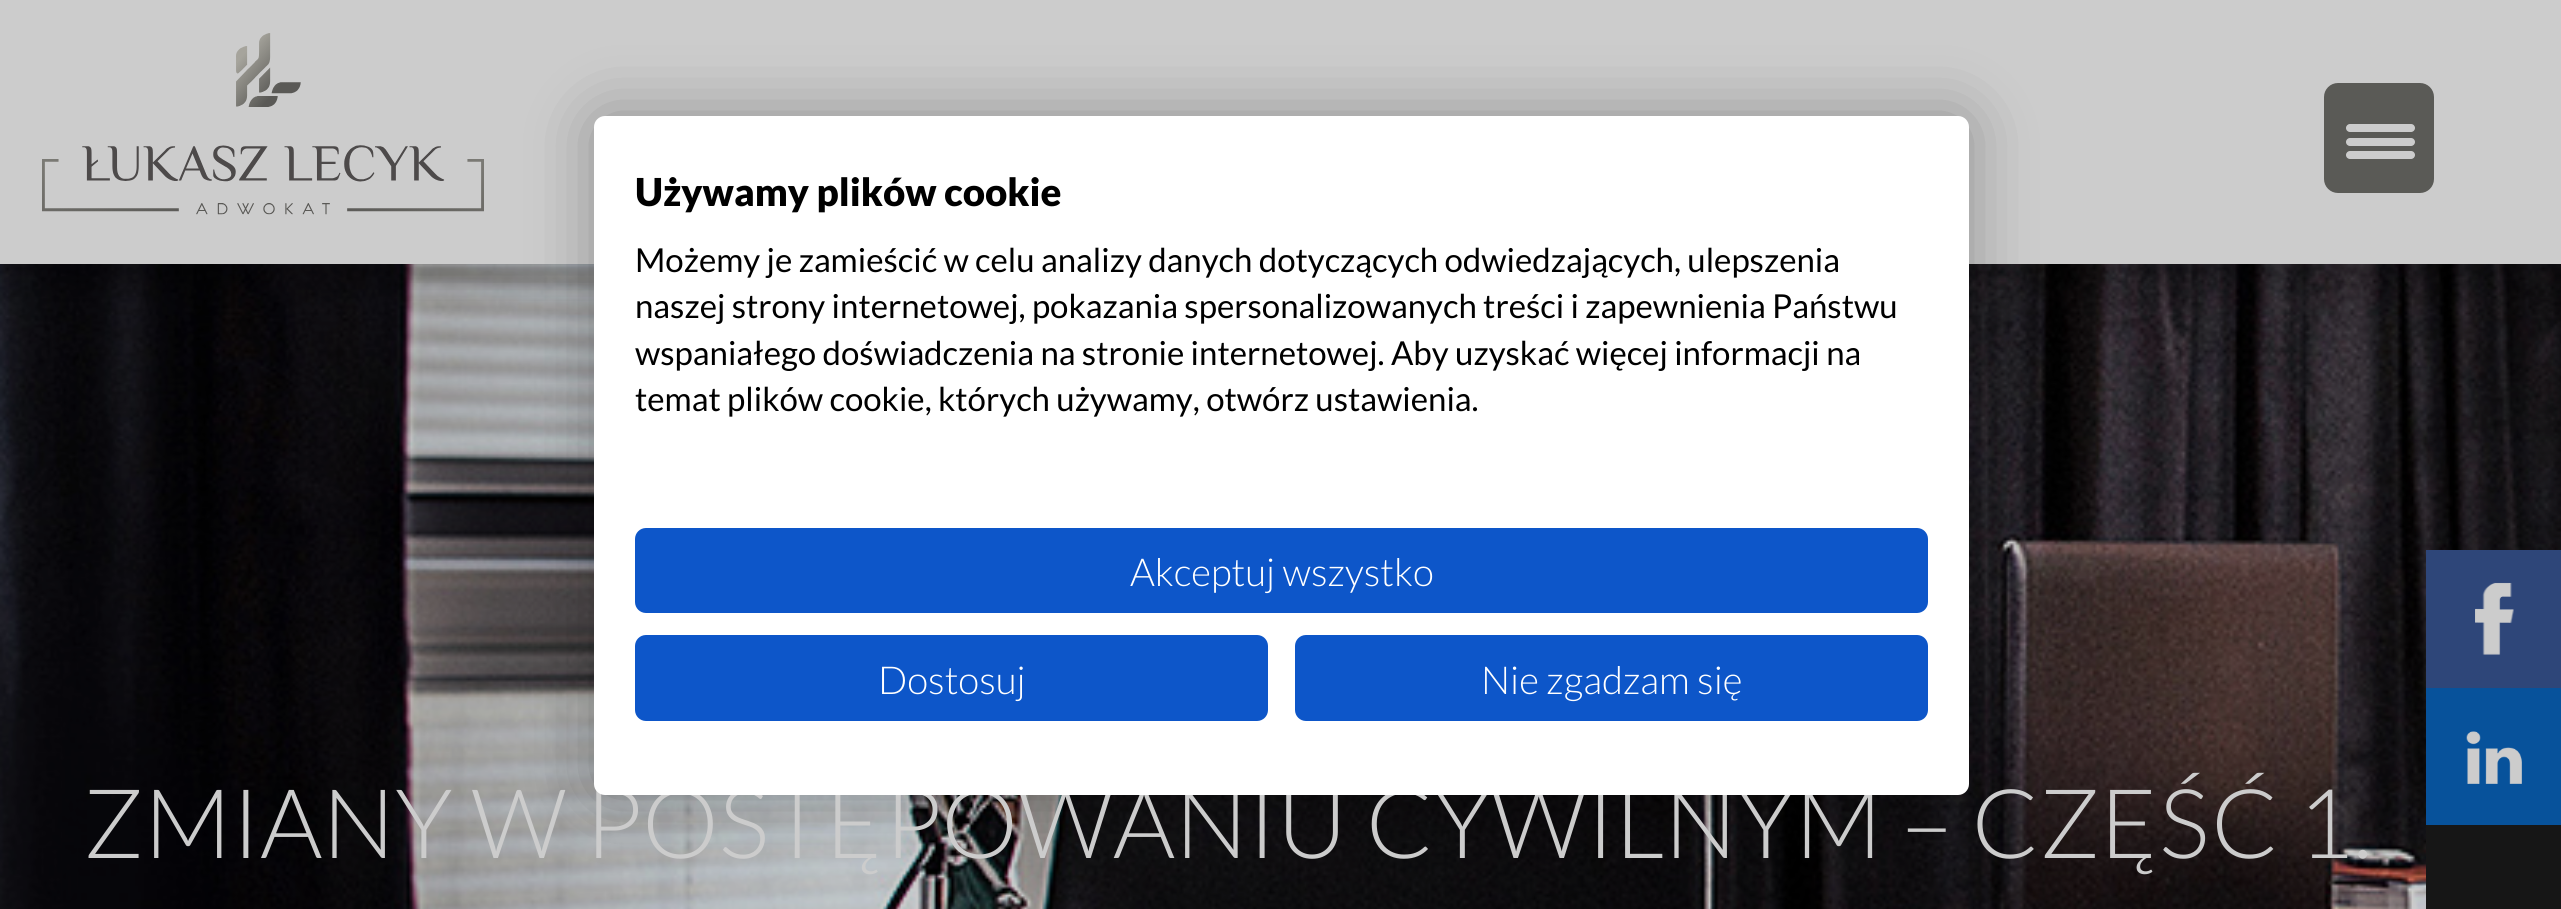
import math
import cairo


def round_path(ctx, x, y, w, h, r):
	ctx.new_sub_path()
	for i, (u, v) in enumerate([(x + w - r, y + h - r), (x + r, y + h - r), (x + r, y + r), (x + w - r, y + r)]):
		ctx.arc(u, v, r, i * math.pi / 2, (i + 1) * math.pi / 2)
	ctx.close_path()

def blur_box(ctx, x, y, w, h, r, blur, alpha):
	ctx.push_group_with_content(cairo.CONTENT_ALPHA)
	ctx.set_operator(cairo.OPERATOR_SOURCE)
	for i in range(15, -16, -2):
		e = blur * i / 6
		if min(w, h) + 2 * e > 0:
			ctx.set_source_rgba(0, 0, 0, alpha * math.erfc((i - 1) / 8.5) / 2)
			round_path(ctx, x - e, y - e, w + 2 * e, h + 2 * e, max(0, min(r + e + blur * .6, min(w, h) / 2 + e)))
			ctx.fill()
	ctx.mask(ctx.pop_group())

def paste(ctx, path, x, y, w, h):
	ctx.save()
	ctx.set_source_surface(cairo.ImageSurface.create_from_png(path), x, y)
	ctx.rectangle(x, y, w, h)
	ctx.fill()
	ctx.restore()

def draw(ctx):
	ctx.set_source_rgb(0.8, 0.8, 0.8)
	ctx.paint()
	paste(ctx, 'media/3.png', 0, 264, 2561, 645)
	ctx.save()
	ctx.rectangle(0, 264, 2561, 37)
	ctx.clip()
	ctx.set_source_rgb(0, 0, 0)
	blur_box(ctx, 0, 8, 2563, 264, 0, 22, 0.21)
	ctx.restore()
	paste(ctx, 'media/1.png', 42, 33, 442, 182)
	ctx.set_source_rgb(0.353, 0.353, 0.337)
	round_path(ctx, 2324, 83, 110, 110, 14)
	ctx.fill()
	ctx.set_source_rgb(0.8, 0.8, 0.8)
	round_path(ctx, 2346, 138, 69, 8, 4)
	ctx.fill()
	round_path(ctx, 2346, 124, 69, 8, 4)
	ctx.fill()
	round_path(ctx, 2346, 151, 69, 8, 4)
	ctx.fill()
	ctx.set_source_rgb(0, 0, 0)
	blur_box(ctx, 594, 116, 1375, 679, 11, 33, 0.3)
	ctx.select_font_face('Lato Light')
	ctx.set_font_size(96.25)
	ctx.set_source_rgb(0.8, 0.8, 0.8)
	ctx.move_to(83, 858)
	ctx.show_text('ZMIANY W POSTĘPOWANIU CYWILNYM – CZĘŚĆ 1.')
	ctx.set_source_rgb(1, 1, 1)
	round_path(ctx, 594, 116, 1375, 679, 11)
	ctx.fill()
	ctx.select_font_face('Lato Black')
	ctx.set_font_size(38.5)
	ctx.set_source_rgb(0, 0, 0)
	ctx.move_to(635, 206)
	ctx.show_text('Używamy plików cookie')
	ctx.select_font_face('Lato')
	ctx.set_font_size(33)
	for x, y, s in [
		(635, 272, 'Możemy je zamieścić w celu analizy danych dotyczących odwiedzających, ulepszenia'),
		(635, 318, 'naszej strony internetowej, pokazania spersonalizowanych treści i zapewnienia Państwu'),
		(635, 365, 'wspaniałego doświadczenia na stronie internetowej. Aby uzyskać więcej informacji na'),
		(635, 411, 'temat plików cookie, których używamy, otwórz ustawienia.'),
	]:
		ctx.move_to(x, y)
		ctx.show_text(s)
	ctx.set_source_rgb(0.051, 0.337, 0.788)
	round_path(ctx, 636.5, 529.5, 1290, 82, 9.5)
	ctx.fill_preserve()
	ctx.set_line_width(3)
	ctx.stroke()
	ctx.select_font_face('Lato Light')
	ctx.set_font_size(38.5)
	ctx.set_source_rgb(1, 1, 1)
	ctx.move_to(1130, 586)
	ctx.show_text('Akceptuj wszystko')
	ctx.set_source_rgb(0.051, 0.337, 0.788)
	round_path(ctx, 636.5, 636.5, 630, 83, 9.5)
	ctx.fill_preserve()
	ctx.stroke()
	ctx.set_source_rgb(1, 1, 1)
	ctx.move_to(878, 694)
	ctx.show_text('Dostosuj')
	ctx.set_source_rgb(0.051, 0.337, 0.788)
	round_path(ctx, 1296.5, 636.5, 630, 83, 9.5)
	ctx.fill_preserve()
	ctx.stroke()
	ctx.set_source_rgb(1, 1, 1)
	ctx.move_to(1481, 694)
	ctx.show_text('Nie zgadzam się')
	ctx.set_source_rgb(0.18, 0.275, 0.475)
	ctx.rectangle(2426, 550, 135, 138)
	ctx.fill()
	paste(ctx, 'media/2.png', 2475, 582, 39, 73)
	ctx.set_source_rgb(0.031, 0.322, 0.608)
	ctx.rectangle(2426, 688, 135, 137)
	ctx.fill()
	paste(ctx, 'media/4.png', 2466, 731, 56, 53)
	ctx.set_source_rgb(0.086, 0.086, 0.086)
	ctx.rectangle(2426, 825, 135, 84)
	ctx.fill()


surface = cairo.ImageSurface(cairo.FORMAT_RGB24, 2561, 909)
ctx = cairo.Context(surface)
options = cairo.FontOptions()
options.set_hint_metrics(cairo.HINT_METRICS_OFF)
options.set_hint_style(cairo.HINT_STYLE_NONE)
ctx.set_font_options(options)
ctx.set_miter_limit(4)
draw(ctx)
surface.write_to_png('image.png')
